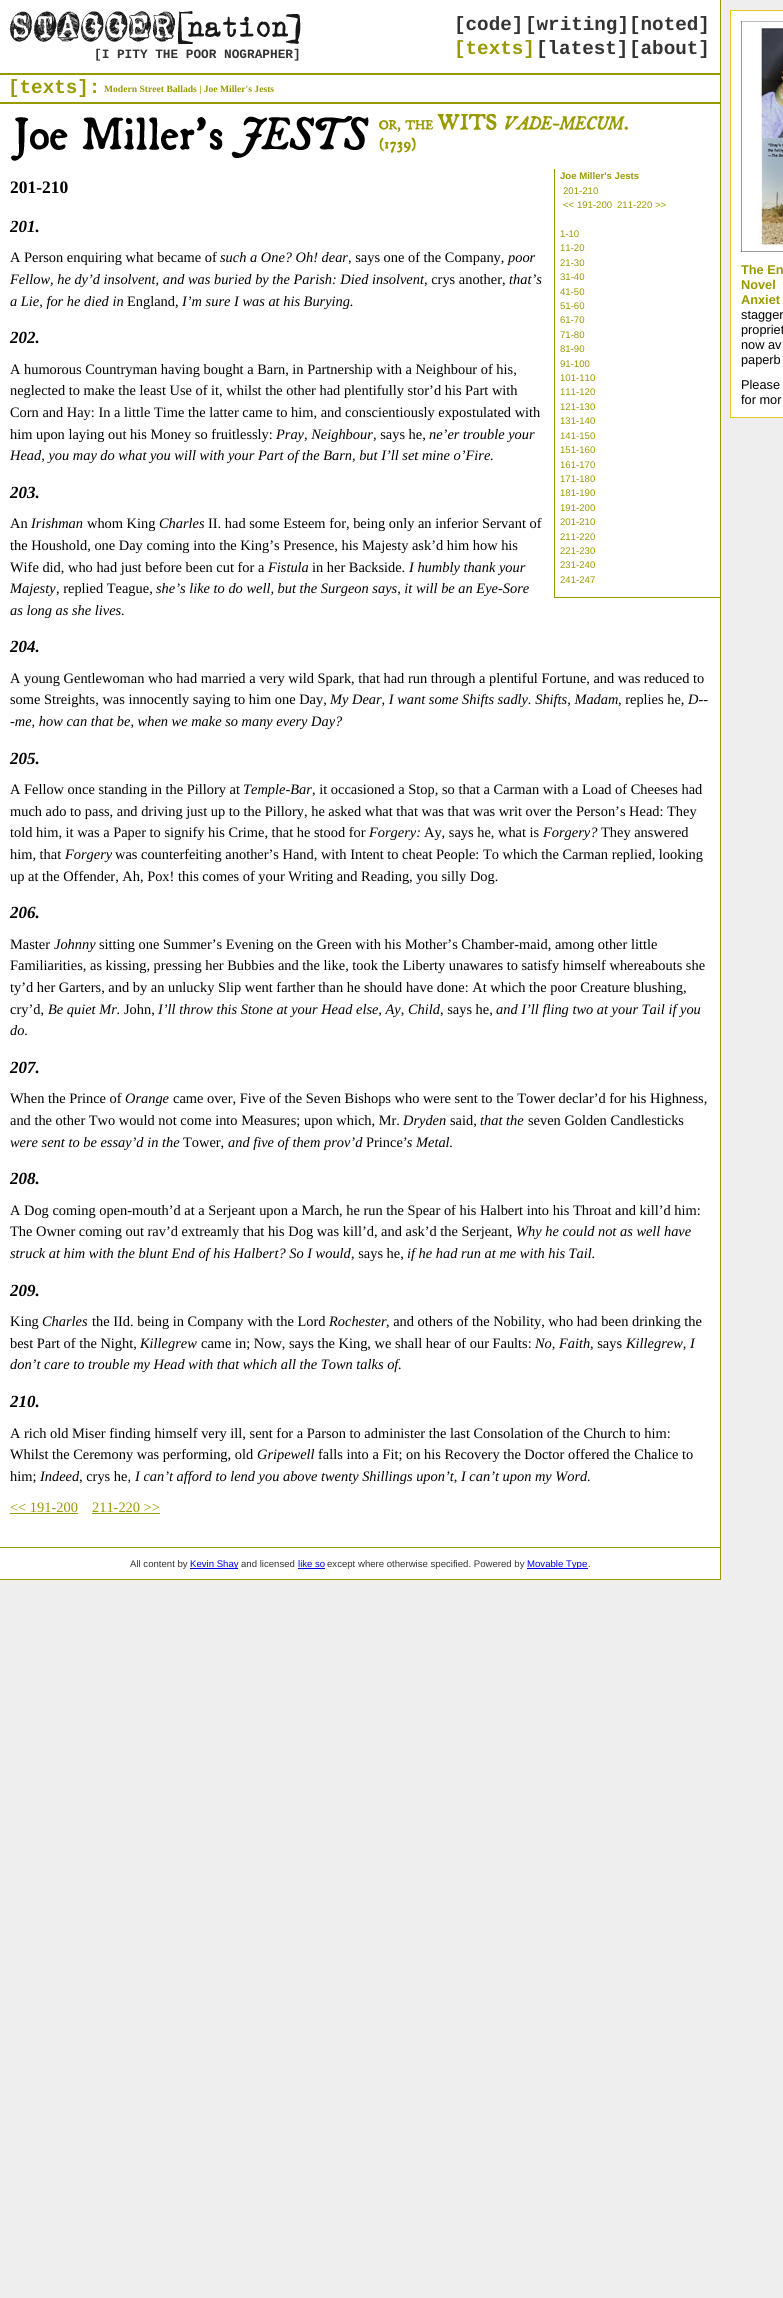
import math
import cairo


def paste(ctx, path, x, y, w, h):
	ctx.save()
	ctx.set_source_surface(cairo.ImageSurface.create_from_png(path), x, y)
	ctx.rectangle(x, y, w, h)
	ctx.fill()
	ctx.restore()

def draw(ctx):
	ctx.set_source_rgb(0.933, 0.933, 0.933)
	ctx.paint()
	ctx.set_source_rgb(1, 1, 1)
	ctx.rectangle(0, 0, 720, 1579)
	ctx.fill()
	ctx.set_source_rgb(0.6, 0.6, 0)
	ctx.rectangle(720, 0, 1, 1580)
	ctx.rectangle(0, 1579, 721, 1)
	ctx.fill()
	paste(ctx, 'media/1.png', 10, 11, 291, 33)
	ctx.select_font_face('Liberation Mono', cairo.FONT_SLANT_NORMAL, cairo.FONT_WEIGHT_BOLD)
	ctx.set_font_size(12.75)
	ctx.set_source_rgb(0.2, 0.2, 0.2)
	ctx.move_to(94, 58)
	ctx.show_text('[I PITY THE POOR NOGRAPHER]')
	ctx.set_font_size(19.25)
	for x, y, s in [
		(454, 30, '[code]'),
		(525, 30, '[writing]'),
		(629, 30, '[noted]'),
	]:
		ctx.move_to(x, y)
		ctx.show_text(s)
	ctx.set_source_rgb(0.6, 0.6, 0)
	ctx.move_to(454, 54)
	ctx.show_text('[texts]')
	ctx.set_source_rgb(0.2, 0.2, 0.2)
	ctx.move_to(536, 54)
	ctx.show_text('[latest]')
	ctx.move_to(629, 54)
	ctx.show_text('[about]')
	ctx.set_source_rgb(0.6, 0.6, 0)
	ctx.rectangle(0, 73, 720, 2)
	ctx.fill()
	ctx.rectangle(0, 102, 720, 2)
	ctx.fill()
	ctx.move_to(8, 93)
	ctx.show_text('[texts]:')
	ctx.select_font_face('Liberation Serif', cairo.FONT_SLANT_NORMAL, cairo.FONT_WEIGHT_BOLD)
	ctx.set_font_size(9.6)
	ctx.move_to(104, 92)
	ctx.show_text('Modern Street Ballads | Joe Miller\'s Jests')
	paste(ctx, 'media/2.png', 11, 114, 617, 47)
	ctx.set_font_size(17.5)
	ctx.set_source_rgb(0, 0, 0)
	ctx.move_to(10, 193)
	ctx.show_text('201-210')
	ctx.set_source_rgb(0.6, 0.6, 0)
	ctx.rectangle(554, 597, 166, 1)
	ctx.fill()
	ctx.rectangle(554, 169, 1, 429)
	ctx.fill()
	ctx.select_font_face('Liberation Sans', cairo.FONT_SLANT_NORMAL, cairo.FONT_WEIGHT_BOLD)
	ctx.set_font_size(9.6)
	ctx.move_to(560, 179)
	ctx.show_text('Joe Miller\'s Jests')
	ctx.select_font_face('Liberation Sans')
	for x, y, s in [
		(563, 194, '201-210'),
		(563, 208, '<< 191-200'),
		(617, 208, '211-220 >>'),
		(560, 237, '1-10'),
		(560, 251, '11-20'),
		(560, 266, '21-30'),
		(560, 280, '31-40'),
		(560, 295, '41-50'),
		(560, 309, '51-60'),
		(560, 323, '61-70'),
		(560, 338, '71-80'),
		(560, 352, '81-90'),
		(560, 367, '91-100'),
		(560, 381, '101-110'),
		(560, 395, '111-120'),
		(560, 410, '121-130'),
		(560, 424, '131-140'),
		(560, 439, '141-150'),
		(560, 453, '151-160'),
		(560, 468, '161-170'),
		(560, 482, '171-180'),
		(560, 496, '181-190'),
		(560, 511, '191-200'),
		(560, 525, '201-210'),
		(560, 540, '211-220'),
		(560, 554, '221-230'),
		(560, 568, '231-240'),
		(560, 583, '241-247'),
	]:
		ctx.move_to(x, y)
		ctx.show_text(s)
	ctx.select_font_face('Liberation Serif', cairo.FONT_SLANT_ITALIC, cairo.FONT_WEIGHT_BOLD)
	ctx.set_font_size(17)
	ctx.set_source_rgb(0, 0, 0)
	ctx.move_to(10, 232)
	ctx.show_text('201.')
	ctx.select_font_face('Liberation Serif')
	ctx.set_font_size(14.4)
	ctx.move_to(10, 262)
	ctx.show_text('A Person enquiring what became of')
	ctx.select_font_face('Liberation Serif', cairo.FONT_SLANT_ITALIC)
	ctx.move_to(220, 262)
	ctx.show_text('such a One? Oh! dear')
	ctx.select_font_face('Liberation Serif')
	ctx.move_to(348, 262)
	ctx.show_text(', says one of the Company,')
	ctx.select_font_face('Liberation Serif', cairo.FONT_SLANT_ITALIC)
	ctx.move_to(508, 262)
	ctx.show_text('poor')
	ctx.move_to(10, 284)
	ctx.show_text('Fellow, he dy’d insolvent, and was buried by the Parish: Died insolvent')
	ctx.select_font_face('Liberation Serif')
	ctx.move_to(424, 284)
	ctx.show_text(', crys another,')
	ctx.select_font_face('Liberation Serif', cairo.FONT_SLANT_ITALIC)
	ctx.move_to(509, 284)
	ctx.show_text('that’s')
	ctx.move_to(10, 306)
	ctx.show_text('a Lie, for he died in')
	ctx.select_font_face('Liberation Serif')
	ctx.move_to(127, 306)
	ctx.show_text('England,')
	ctx.select_font_face('Liberation Serif', cairo.FONT_SLANT_ITALIC)
	ctx.move_to(182, 306)
	ctx.show_text('I’m sure I was at his Burying.')
	ctx.select_font_face('Liberation Serif', cairo.FONT_SLANT_ITALIC, cairo.FONT_WEIGHT_BOLD)
	ctx.set_font_size(17)
	ctx.move_to(10, 343)
	ctx.show_text('202.')
	ctx.select_font_face('Liberation Serif')
	ctx.set_font_size(14.4)
	for x, y, s in [
		(10, 374, 'A humorous Countryman having bought a Barn, in Partnership with a Neighbour of his,'),
		(10, 395, 'neglected to make the least Use of it, whilst the other had plentifully stor’d his Part with'),
		(10, 417, 'Corn and Hay: In a little Time the latter came to him, and conscientiously expostulated with'),
		(10, 439, 'him upon laying out his Money so fruitlessly:'),
	]:
		ctx.move_to(x, y)
		ctx.show_text(s)
	ctx.select_font_face('Liberation Serif', cairo.FONT_SLANT_ITALIC)
	ctx.move_to(276, 439)
	ctx.show_text('Pray, Neighbour')
	ctx.select_font_face('Liberation Serif')
	ctx.move_to(373, 439)
	ctx.show_text(', says he,')
	ctx.select_font_face('Liberation Serif', cairo.FONT_SLANT_ITALIC)
	ctx.move_to(429, 439)
	ctx.show_text('ne’er trouble your')
	ctx.move_to(10, 460)
	ctx.show_text('Head, you may do what you will with your Part of the Barn, but I’ll set mine o’Fire.')
	ctx.select_font_face('Liberation Serif', cairo.FONT_SLANT_ITALIC, cairo.FONT_WEIGHT_BOLD)
	ctx.set_font_size(17)
	ctx.move_to(10, 498)
	ctx.show_text('203.')
	ctx.select_font_face('Liberation Serif')
	ctx.set_font_size(14.4)
	ctx.move_to(10, 528)
	ctx.show_text('An')
	ctx.select_font_face('Liberation Serif', cairo.FONT_SLANT_ITALIC)
	ctx.move_to(31, 528)
	ctx.show_text('Irishman')
	ctx.select_font_face('Liberation Serif')
	ctx.move_to(87, 528)
	ctx.show_text('whom King')
	ctx.select_font_face('Liberation Serif', cairo.FONT_SLANT_ITALIC)
	ctx.move_to(159, 528)
	ctx.show_text('Charles')
	ctx.select_font_face('Liberation Serif')
	for x, y, s in [
		(208, 528, 'II. had some Esteem for, being only an inferior Servant of'),
		(10, 550, 'the Houshold, one Day coming into the King’s Presence, his Majesty ask’d him how his'),
		(10, 572, 'Wife did, who had just before been cut for a'),
	]:
		ctx.move_to(x, y)
		ctx.show_text(s)
	ctx.select_font_face('Liberation Serif', cairo.FONT_SLANT_ITALIC)
	ctx.move_to(268, 572)
	ctx.show_text('Fistula')
	ctx.select_font_face('Liberation Serif')
	ctx.move_to(312, 572)
	ctx.show_text('in her Backside.')
	ctx.select_font_face('Liberation Serif', cairo.FONT_SLANT_ITALIC)
	ctx.move_to(409, 572)
	ctx.show_text('I humbly thank your')
	ctx.move_to(10, 593)
	ctx.show_text('Majesty')
	ctx.select_font_face('Liberation Serif')
	ctx.move_to(56, 593)
	ctx.show_text(', replied Teague,')
	ctx.select_font_face('Liberation Serif', cairo.FONT_SLANT_ITALIC)
	ctx.move_to(156, 593)
	ctx.show_text('she’s like to do well, but the Surgeon says, it will be an Eye-Sore')
	ctx.move_to(10, 615)
	ctx.show_text('as long as she lives.')
	ctx.select_font_face('Liberation Serif', cairo.FONT_SLANT_ITALIC, cairo.FONT_WEIGHT_BOLD)
	ctx.set_font_size(17)
	ctx.move_to(10, 652)
	ctx.show_text('204.')
	ctx.select_font_face('Liberation Serif')
	ctx.set_font_size(14.4)
	ctx.move_to(10, 683)
	ctx.show_text('A young Gentlewoman who had married a very wild Spark, that had run through a plentiful Fortune, and was reduced to')
	ctx.move_to(10, 704)
	ctx.show_text('some Streights, was innocently saying to him one Day,')
	ctx.select_font_face('Liberation Serif', cairo.FONT_SLANT_ITALIC)
	ctx.move_to(330, 704)
	ctx.show_text('My Dear, I want some Shifts sadly. Shifts, Madam')
	ctx.select_font_face('Liberation Serif')
	ctx.move_to(618, 704)
	ctx.show_text(', replies he,')
	ctx.select_font_face('Liberation Serif', cairo.FONT_SLANT_ITALIC)
	ctx.move_to(688, 704)
	ctx.show_text('D--')
	ctx.move_to(10, 726)
	ctx.show_text('-me, how can that be, when we make so many every Day?')
	ctx.select_font_face('Liberation Serif', cairo.FONT_SLANT_ITALIC, cairo.FONT_WEIGHT_BOLD)
	ctx.set_font_size(17)
	ctx.move_to(10, 764)
	ctx.show_text('205.')
	ctx.select_font_face('Liberation Serif')
	ctx.set_font_size(14.4)
	ctx.move_to(10, 794)
	ctx.show_text('A Fellow once standing in the Pillory at')
	ctx.select_font_face('Liberation Serif', cairo.FONT_SLANT_ITALIC)
	ctx.move_to(243, 794)
	ctx.show_text('Temple-Bar')
	ctx.select_font_face('Liberation Serif')
	for x, y, s in [
		(312, 794, ', it occasioned a Stop, so that a Carman with a Load of Cheeses had'),
		(10, 816, 'much ado to pass, and driving just up to the Pillory, he asked what that was that was writ over the Person’s Head: They'),
		(10, 837, 'told him, it was a Paper to signify his Crime, that he stood for'),
	]:
		ctx.move_to(x, y)
		ctx.show_text(s)
	ctx.select_font_face('Liberation Serif', cairo.FONT_SLANT_ITALIC)
	ctx.move_to(369, 837)
	ctx.show_text('Forgery:')
	ctx.select_font_face('Liberation Serif')
	ctx.move_to(424, 837)
	ctx.show_text('Ay, says he, what is')
	ctx.select_font_face('Liberation Serif', cairo.FONT_SLANT_ITALIC)
	ctx.move_to(543, 837)
	ctx.show_text('Forgery?')
	ctx.select_font_face('Liberation Serif')
	ctx.move_to(601, 837)
	ctx.show_text('They answered')
	ctx.move_to(10, 859)
	ctx.show_text('him, that')
	ctx.select_font_face('Liberation Serif', cairo.FONT_SLANT_ITALIC)
	ctx.move_to(65, 859)
	ctx.show_text('Forgery')
	ctx.select_font_face('Liberation Serif')
	ctx.move_to(115, 859)
	ctx.show_text('was counterfeiting another’s Hand, with Intent to cheat People: To which the Carman replied, looking')
	ctx.move_to(10, 881)
	ctx.show_text('up at the Offender, Ah, Pox! this comes of your Writing and Reading, you silly Dog.')
	ctx.select_font_face('Liberation Serif', cairo.FONT_SLANT_ITALIC, cairo.FONT_WEIGHT_BOLD)
	ctx.set_font_size(17)
	ctx.move_to(10, 918)
	ctx.show_text('206.')
	ctx.select_font_face('Liberation Serif')
	ctx.set_font_size(14.4)
	ctx.move_to(10, 949)
	ctx.show_text('Master')
	ctx.select_font_face('Liberation Serif', cairo.FONT_SLANT_ITALIC)
	ctx.move_to(54, 949)
	ctx.show_text('Johnny')
	ctx.select_font_face('Liberation Serif')
	for x, y, s in [
		(99, 949, 'sitting one Summer’s Evening on the Green with his Mother’s Chamber-maid, among other little'),
		(10, 970, 'Familiarities, as kissing, pressing her Bubbies and the like, took the Liberty unawares to satisfy himself whereabouts she'),
		(10, 992, 'ty’d her Garters, and by an unlucky Slip went farther than he should have done: At which the poor Creature blushing,'),
		(10, 1014, 'cry’d,'),
	]:
		ctx.move_to(x, y)
		ctx.show_text(s)
	ctx.select_font_face('Liberation Serif', cairo.FONT_SLANT_ITALIC)
	ctx.move_to(48, 1014)
	ctx.show_text('Be quiet Mr.')
	ctx.select_font_face('Liberation Serif')
	ctx.move_to(124, 1014)
	ctx.show_text('John,')
	ctx.select_font_face('Liberation Serif', cairo.FONT_SLANT_ITALIC)
	ctx.move_to(158, 1014)
	ctx.show_text('I’ll throw this Stone at your Head else, Ay, Child')
	ctx.select_font_face('Liberation Serif')
	ctx.move_to(440, 1014)
	ctx.show_text(', says he,')
	ctx.select_font_face('Liberation Serif', cairo.FONT_SLANT_ITALIC)
	ctx.move_to(496, 1014)
	ctx.show_text('and I’ll fling two at your Tail if you')
	ctx.move_to(10, 1035)
	ctx.show_text('do.')
	ctx.select_font_face('Liberation Serif', cairo.FONT_SLANT_ITALIC, cairo.FONT_WEIGHT_BOLD)
	ctx.set_font_size(17)
	ctx.move_to(10, 1073)
	ctx.show_text('207.')
	ctx.select_font_face('Liberation Serif')
	ctx.set_font_size(14.4)
	ctx.move_to(10, 1103)
	ctx.show_text('When the Prince of')
	ctx.select_font_face('Liberation Serif', cairo.FONT_SLANT_ITALIC)
	ctx.move_to(125, 1103)
	ctx.show_text('Orange')
	ctx.select_font_face('Liberation Serif')
	ctx.move_to(173, 1103)
	ctx.show_text('came over, Five of the Seven Bishops who were sent to the Tower declar’d for his Highness,')
	ctx.move_to(10, 1125)
	ctx.show_text('and the other Two would not come into Measures; upon which, Mr.')
	ctx.select_font_face('Liberation Serif', cairo.FONT_SLANT_ITALIC)
	ctx.move_to(403, 1125)
	ctx.show_text('Dryden')
	ctx.select_font_face('Liberation Serif')
	ctx.move_to(450, 1125)
	ctx.show_text('said,')
	ctx.select_font_face('Liberation Serif', cairo.FONT_SLANT_ITALIC)
	ctx.move_to(480, 1125)
	ctx.show_text('that the')
	ctx.select_font_face('Liberation Serif')
	ctx.move_to(528, 1125)
	ctx.show_text('seven Golden Candlesticks')
	ctx.select_font_face('Liberation Serif', cairo.FONT_SLANT_ITALIC)
	ctx.move_to(10, 1147)
	ctx.show_text('were sent to be essay’d in the')
	ctx.select_font_face('Liberation Serif')
	ctx.move_to(183, 1147)
	ctx.show_text('Tower,')
	ctx.select_font_face('Liberation Serif', cairo.FONT_SLANT_ITALIC)
	ctx.move_to(228, 1147)
	ctx.show_text('and five of them prov’d')
	ctx.select_font_face('Liberation Serif')
	ctx.move_to(366, 1147)
	ctx.show_text('Prince')
	ctx.select_font_face('Liberation Serif', cairo.FONT_SLANT_ITALIC)
	ctx.move_to(402, 1147)
	ctx.show_text('’s Metal.')
	ctx.select_font_face('Liberation Serif', cairo.FONT_SLANT_ITALIC, cairo.FONT_WEIGHT_BOLD)
	ctx.set_font_size(17)
	ctx.move_to(10, 1184)
	ctx.show_text('208.')
	ctx.select_font_face('Liberation Serif')
	ctx.set_font_size(14.4)
	ctx.move_to(10, 1215)
	ctx.show_text('A Dog coming open-mouth’d at a Serjeant upon a March, he run the Spear of his Halbert into his Throat and kill’d him:')
	ctx.move_to(10, 1236)
	ctx.show_text('The Owner coming out rav’d extreamly that his Dog was kill’d, and ask’d the Serjeant,')
	ctx.select_font_face('Liberation Serif', cairo.FONT_SLANT_ITALIC)
	ctx.move_to(516, 1236)
	ctx.show_text('Why he could not as well have')
	ctx.move_to(10, 1258)
	ctx.show_text('struck at him with the blunt End of his Halbert? So I would')
	ctx.select_font_face('Liberation Serif')
	ctx.move_to(351, 1258)
	ctx.show_text(', says he,')
	ctx.select_font_face('Liberation Serif', cairo.FONT_SLANT_ITALIC)
	ctx.move_to(407, 1258)
	ctx.show_text('if he had run at me with his Tail.')
	ctx.select_font_face('Liberation Serif', cairo.FONT_SLANT_ITALIC, cairo.FONT_WEIGHT_BOLD)
	ctx.set_font_size(17)
	ctx.move_to(10, 1296)
	ctx.show_text('209.')
	ctx.select_font_face('Liberation Serif')
	ctx.set_font_size(14.4)
	ctx.move_to(10, 1326)
	ctx.show_text('King')
	ctx.select_font_face('Liberation Serif', cairo.FONT_SLANT_ITALIC)
	ctx.move_to(42, 1326)
	ctx.show_text('Charles')
	ctx.select_font_face('Liberation Serif')
	ctx.move_to(92, 1326)
	ctx.show_text('the IId. being in Company with the Lord')
	ctx.select_font_face('Liberation Serif', cairo.FONT_SLANT_ITALIC)
	ctx.move_to(329, 1326)
	ctx.show_text('Rochester')
	ctx.select_font_face('Liberation Serif')
	ctx.move_to(386, 1326)
	ctx.show_text(', and others of the Nobility, who had been drinking the')
	ctx.move_to(10, 1348)
	ctx.show_text('best Part of the Night,')
	ctx.select_font_face('Liberation Serif', cairo.FONT_SLANT_ITALIC)
	ctx.move_to(140, 1348)
	ctx.show_text('Killegrew')
	ctx.select_font_face('Liberation Serif')
	ctx.move_to(201, 1348)
	ctx.show_text('came in; Now, says the King, we shall hear of our Faults:')
	ctx.select_font_face('Liberation Serif', cairo.FONT_SLANT_ITALIC)
	ctx.move_to(535, 1348)
	ctx.show_text('No, Faith')
	ctx.select_font_face('Liberation Serif')
	ctx.move_to(590, 1348)
	ctx.show_text(', says')
	ctx.select_font_face('Liberation Serif', cairo.FONT_SLANT_ITALIC)
	ctx.move_to(626, 1348)
	ctx.show_text('Killegrew, I')
	ctx.move_to(10, 1369)
	ctx.show_text('don’t care to trouble my Head with that which all the Town talks of.')
	ctx.select_font_face('Liberation Serif', cairo.FONT_SLANT_ITALIC, cairo.FONT_WEIGHT_BOLD)
	ctx.set_font_size(17)
	ctx.move_to(10, 1407)
	ctx.show_text('210.')
	ctx.select_font_face('Liberation Serif')
	ctx.set_font_size(14.4)
	ctx.move_to(10, 1438)
	ctx.show_text('A rich old Miser finding himself very ill, sent for a Parson to administer the last Consolation of the Church to him:')
	ctx.move_to(10, 1459)
	ctx.show_text('Whilst the Ceremony was performing, old')
	ctx.select_font_face('Liberation Serif', cairo.FONT_SLANT_ITALIC)
	ctx.move_to(257, 1459)
	ctx.show_text('Gripewell')
	ctx.select_font_face('Liberation Serif')
	ctx.move_to(318, 1459)
	ctx.show_text('falls into a Fit; on his Recovery the Doctor offered the Chalice to')
	ctx.move_to(10, 1481)
	ctx.show_text('him;')
	ctx.select_font_face('Liberation Serif', cairo.FONT_SLANT_ITALIC)
	ctx.move_to(40, 1481)
	ctx.show_text('Indeed')
	ctx.select_font_face('Liberation Serif')
	ctx.move_to(79, 1481)
	ctx.show_text(', crys he,')
	ctx.select_font_face('Liberation Serif', cairo.FONT_SLANT_ITALIC)
	ctx.move_to(135, 1481)
	ctx.show_text('I can’t afford to lend you above twenty Shillings upon’t, I can’t upon my Word.')
	ctx.select_font_face('Liberation Serif')
	ctx.set_source_rgb(0.6, 0.6, 0)
	ctx.move_to(10, 1512)
	ctx.show_text('<< 191-200')
	ctx.rectangle(10, 1513, 68, 1)
	ctx.fill()
	ctx.move_to(92, 1512)
	ctx.show_text('211-220 >>')
	ctx.rectangle(92, 1513, 68, 1)
	ctx.fill()
	ctx.rectangle(0, 1547, 720, 1)
	ctx.fill()
	ctx.select_font_face('Liberation Sans')
	ctx.set_font_size(9.6)
	ctx.set_source_rgb(0.2, 0.2, 0.2)
	ctx.move_to(130, 1567)
	ctx.show_text('All content by')
	ctx.set_source_rgb(0, 0, 0.933)
	ctx.rectangle(190, 1568, 48, 1)
	ctx.fill()
	ctx.move_to(190, 1567)
	ctx.show_text('Kevin Shay')
	ctx.set_source_rgb(0.2, 0.2, 0.2)
	ctx.move_to(241, 1567)
	ctx.show_text('and licensed')
	ctx.set_source_rgb(0, 0, 0.933)
	ctx.move_to(298, 1567)
	ctx.show_text('like so')
	ctx.rectangle(298, 1568, 27, 1)
	ctx.fill()
	ctx.set_source_rgb(0.2, 0.2, 0.2)
	ctx.move_to(327, 1567)
	ctx.show_text('except where otherwise specified. Powered by')
	ctx.set_source_rgb(0, 0, 0.933)
	ctx.rectangle(527, 1568, 61, 1)
	ctx.fill()
	ctx.move_to(527, 1567)
	ctx.show_text('Movable Type')
	ctx.set_source_rgb(0.2, 0.2, 0.2)
	ctx.move_to(588, 1567)
	ctx.show_text('.')
	ctx.set_source_rgb(1, 1, 1)
	ctx.rectangle(730.5, 10.5, 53, 407)
	ctx.fill_preserve()
	ctx.set_source_rgb(0.906, 0.788, 0.114)
	ctx.set_line_width(1)
	ctx.stroke()
	paste(ctx, 'media/3.png', 741, 21, 42, 231)
	ctx.select_font_face('Liberation Sans', cairo.FONT_SLANT_NORMAL, cairo.FONT_WEIGHT_BOLD)
	ctx.set_font_size(12.75)
	ctx.set_source_rgb(0.6, 0.6, 0)
	for x, y, s in [
		(741, 274, 'The En'),
		(741, 289, 'Novel'),
		(741, 304, 'Anxiet'),
	]:
		ctx.move_to(x, y)
		ctx.show_text(s)
	ctx.select_font_face('Liberation Sans')
	ctx.set_source_rgb(0, 0, 0)
	for x, y, s in [
		(741, 319, 'stagger'),
		(741, 334, 'propriet'),
		(741, 349, 'now av'),
		(741, 364, 'paperb'),
		(741, 389, 'Please'),
		(741, 404, 'for mor'),
	]:
		ctx.move_to(x, y)
		ctx.show_text(s)


surface = cairo.ImageSurface(cairo.FORMAT_RGB24, 783, 2298)
ctx = cairo.Context(surface)
options = cairo.FontOptions()
options.set_hint_metrics(cairo.HINT_METRICS_OFF)
options.set_hint_style(cairo.HINT_STYLE_NONE)
ctx.set_font_options(options)
ctx.set_miter_limit(4)
draw(ctx)
surface.write_to_png('image.png')
